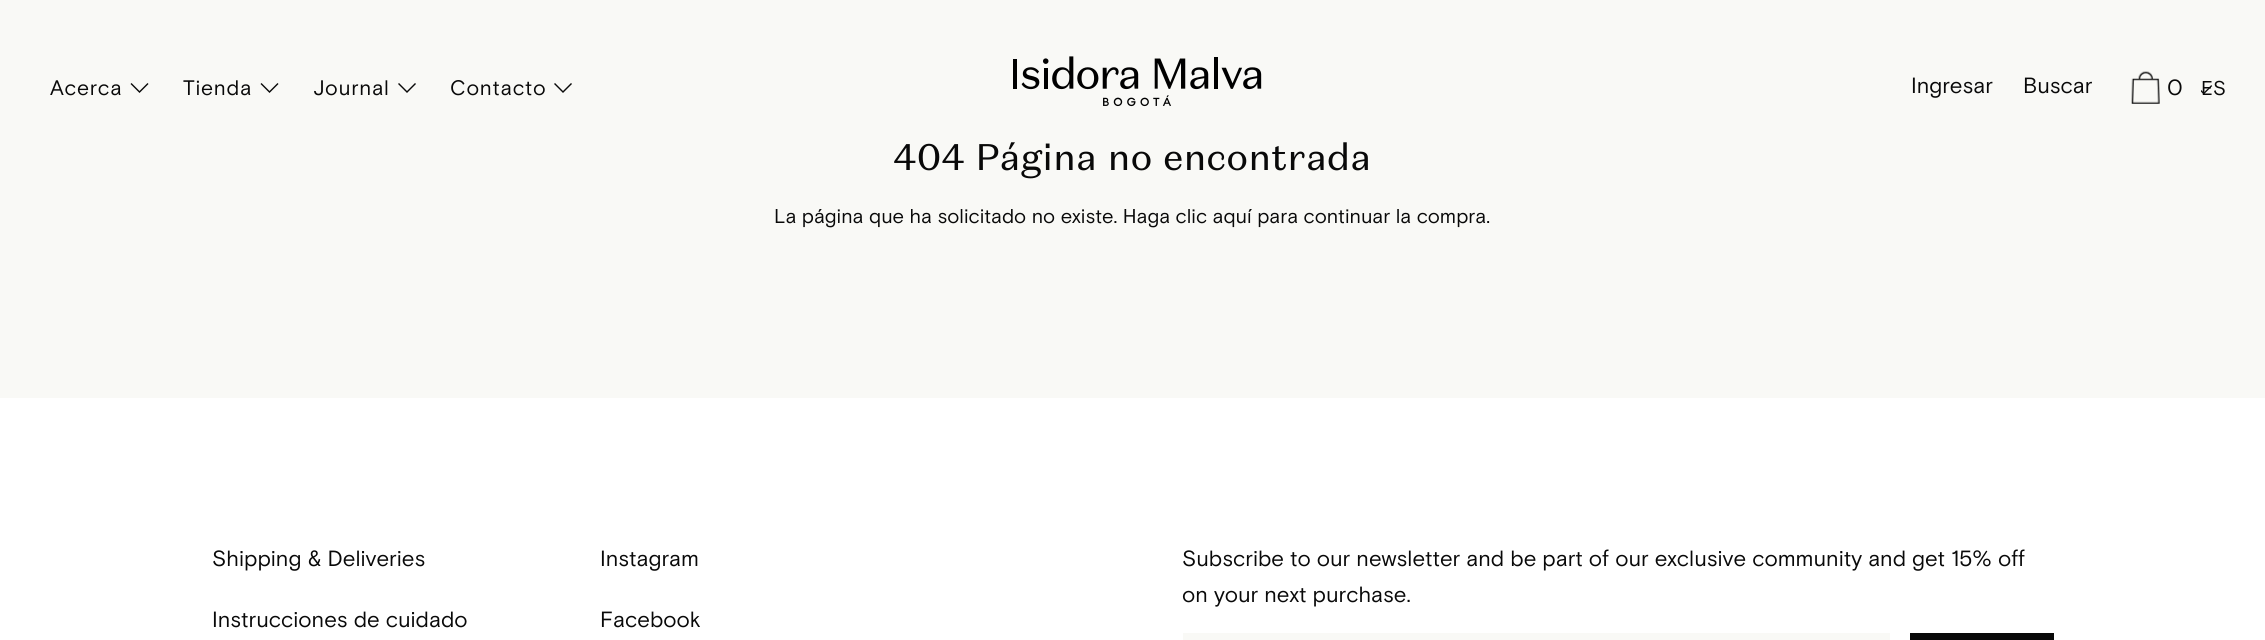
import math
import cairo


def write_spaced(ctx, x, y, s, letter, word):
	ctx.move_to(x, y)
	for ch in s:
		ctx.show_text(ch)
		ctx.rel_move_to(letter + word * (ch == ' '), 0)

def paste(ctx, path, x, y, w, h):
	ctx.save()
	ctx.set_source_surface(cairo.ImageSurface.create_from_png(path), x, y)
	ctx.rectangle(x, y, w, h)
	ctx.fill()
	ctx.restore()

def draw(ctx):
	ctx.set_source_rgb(0.973, 0.973, 0.961)
	ctx.paint()
	ctx.select_font_face('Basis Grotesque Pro')
	ctx.set_font_size(21)
	ctx.set_source_rgb(0.039, 0.039, 0.039)
	write_spaced(ctx, 50, 95, 'Acerca', 0.75, 0)
	ctx.set_fill_rule(cairo.FILL_RULE_EVEN_ODD)
	ctx.new_path()
	ctx.move_to(139.5, 91)
	ctx.line_to(147.5, 83)
	ctx.line_to(148.5, 84)
	ctx.line_to(139.5, 93)
	ctx.line_to(130.5, 84)
	ctx.line_to(131.5, 83)
	ctx.close_path()
	ctx.fill()
	write_spaced(ctx, 183, 95, 'Tienda', 0.75, 0)
	ctx.new_path()
	ctx.move_to(269.5, 91)
	ctx.line_to(277.5, 83)
	ctx.line_to(278.5, 84)
	ctx.line_to(269.5, 93)
	ctx.line_to(260.5, 84)
	ctx.line_to(261.5, 83)
	ctx.close_path()
	ctx.fill()
	write_spaced(ctx, 313, 95, 'Journal', 0.75, 0)
	ctx.new_path()
	ctx.move_to(407, 91)
	ctx.line_to(415, 83)
	ctx.line_to(416, 84)
	ctx.line_to(407, 93)
	ctx.line_to(398, 84)
	ctx.line_to(399, 83)
	ctx.close_path()
	ctx.fill()
	write_spaced(ctx, 450, 95, 'Contacto', 0.75, 0)
	ctx.new_path()
	ctx.move_to(563, 91)
	ctx.line_to(571, 83)
	ctx.line_to(572, 84)
	ctx.line_to(563, 93)
	ctx.line_to(554, 84)
	ctx.line_to(555, 83)
	ctx.close_path()
	ctx.fill()
	paste(ctx, 'media/1.png', 1013, 56, 249, 51)
	ctx.set_font_size(22)
	ctx.move_to(1911, 93)
	ctx.show_text('Ingresar')
	ctx.move_to(2023, 93)
	ctx.show_text('Buscar')
	paste(ctx, 'media/2.png', 2131, 71, 29, 33)
	ctx.move_to(2167, 95)
	ctx.show_text('0')
	paste(ctx, 'media/3.png', 2201, 85, 12, 10)
	ctx.set_font_size(20)
	ctx.move_to(2201, 95)
	ctx.show_text('ES')
	ctx.select_font_face('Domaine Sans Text')
	ctx.set_font_size(37)
	ctx.move_to(893, 170)
	ctx.show_text('404 Página no encontrada')
	ctx.select_font_face('Basis Grotesque Pro')
	ctx.set_font_size(20)
	ctx.move_to(774, 223)
	ctx.show_text('La página que ha solicitado no existe. Haga clic aquí para continuar la compra.')
	ctx.set_source_rgb(1, 1, 1)
	ctx.rectangle(0, 398, 2265, 242)
	ctx.fill()
	ctx.set_font_size(22)
	ctx.set_source_rgb(0.039, 0.039, 0.039)
	for x, y, s in [
		(212, 566, 'Shipping & Deliveries'),
		(212, 627, 'Instrucciones de cuidado'),
		(600, 566, 'Instagram'),
		(600, 627, 'Facebook'),
		(1182, 566, 'Subscribe to our newsletter and be part of our exclusive community and get 15% off'),
		(1182, 602, 'on your next purchase.'),
	]:
		ctx.move_to(x, y)
		ctx.show_text(s)
	ctx.set_source_rgb(0.973, 0.973, 0.961)
	ctx.rectangle(1183, 633, 707, 7)
	ctx.fill()
	ctx.set_source_rgb(0.039, 0.039, 0.039)
	ctx.rectangle(1910, 633, 144, 7)
	ctx.fill()


surface = cairo.ImageSurface(cairo.FORMAT_RGB24, 2265, 640)
ctx = cairo.Context(surface)
options = cairo.FontOptions()
options.set_hint_metrics(cairo.HINT_METRICS_OFF)
options.set_hint_style(cairo.HINT_STYLE_NONE)
ctx.set_font_options(options)
ctx.set_miter_limit(4)
draw(ctx)
surface.write_to_png('image.png')
